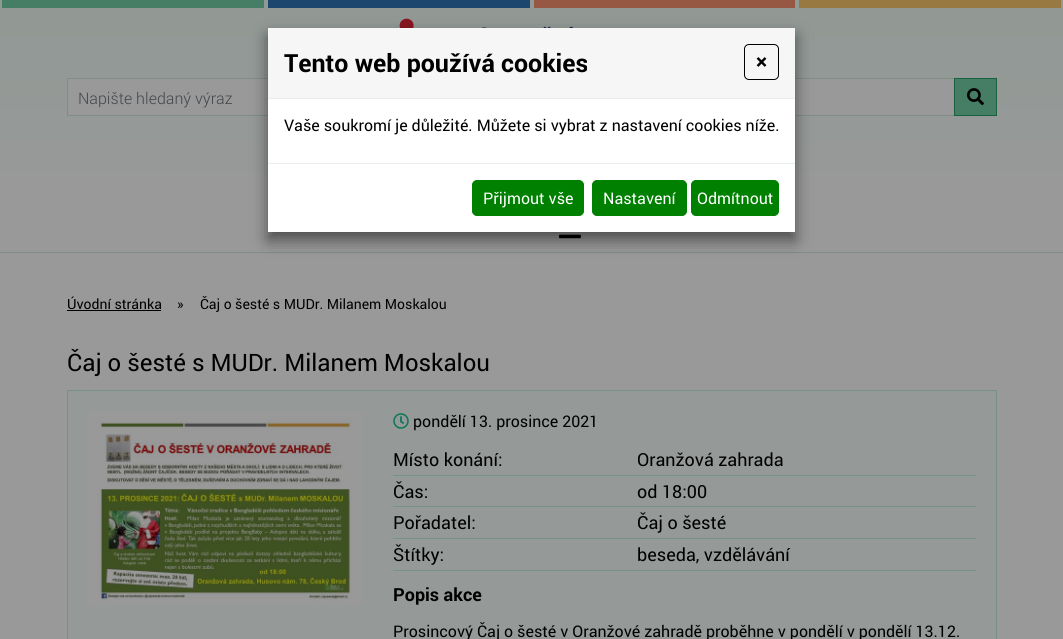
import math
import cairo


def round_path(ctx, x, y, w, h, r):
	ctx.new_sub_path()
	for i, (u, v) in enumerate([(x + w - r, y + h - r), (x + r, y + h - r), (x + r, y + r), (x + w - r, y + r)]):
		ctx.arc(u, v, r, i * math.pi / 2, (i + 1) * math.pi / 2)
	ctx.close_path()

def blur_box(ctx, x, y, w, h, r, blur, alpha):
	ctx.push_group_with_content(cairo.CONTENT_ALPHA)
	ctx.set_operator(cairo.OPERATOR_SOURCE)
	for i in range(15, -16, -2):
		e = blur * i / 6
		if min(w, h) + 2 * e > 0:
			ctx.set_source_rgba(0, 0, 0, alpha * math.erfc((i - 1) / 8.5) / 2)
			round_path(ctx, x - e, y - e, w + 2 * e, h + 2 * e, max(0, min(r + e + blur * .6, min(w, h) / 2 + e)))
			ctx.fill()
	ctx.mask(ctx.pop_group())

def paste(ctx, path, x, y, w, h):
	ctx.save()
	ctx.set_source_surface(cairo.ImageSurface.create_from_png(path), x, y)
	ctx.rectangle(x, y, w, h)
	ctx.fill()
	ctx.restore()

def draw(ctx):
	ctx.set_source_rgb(0.6, 0.6, 0.6)
	ctx.paint()
	gradient = cairo.LinearGradient(532, 0, 532, 252)
	gradient.add_color_stop_rgba(0, 0.569, 0.6, 0.584, 1)
	gradient.add_color_stop_rgba(1, 0.6, 0.6, 0.6, 1)
	ctx.set_source(gradient)
	ctx.rectangle(0, 0, 1063, 173)
	ctx.fill()
	ctx.set_source_rgb(0.486, 0.561, 0.525)
	ctx.rectangle(0, 252, 1063, 1)
	ctx.fill()
	ctx.set_source_rgb(0.271, 0.494, 0.396)
	ctx.rectangle(2, 0, 262, 8)
	ctx.fill()
	ctx.set_source_rgb(0.11, 0.275, 0.427)
	ctx.rectangle(268, 0, 262, 8)
	ctx.fill()
	ctx.set_source_rgb(0.588, 0.345, 0.259)
	ctx.rectangle(534, 0, 261, 8)
	ctx.fill()
	ctx.set_source_rgb(0.592, 0.475, 0.255)
	ctx.rectangle(799, 0, 262, 8)
	ctx.fill()
	paste(ctx, 'media/1.png', 399, 18, 175, 10)
	ctx.set_source_rgb(0.6, 0.6, 0.6)
	ctx.rectangle(68, 79, 886, 36)
	ctx.fill()
	ctx.set_source_rgb(0.486, 0.561, 0.525)
	ctx.rectangle(67, 78, 888, 1)
	ctx.rectangle(67, 115, 888, 1)
	ctx.rectangle(67, 78, 1, 38)
	ctx.fill()
	ctx.select_font_face('Roboto Light')
	ctx.set_font_size(16)
	ctx.set_source_rgb(0.255, 0.275, 0.294)
	ctx.move_to(78, 104)
	ctx.show_text('Napište hledaný výraz')
	ctx.set_source_rgb(0.271, 0.494, 0.396)
	ctx.rectangle(954.5, 78.5, 42, 37)
	ctx.fill_preserve()
	ctx.set_source_rgb(0.09, 0.376, 0.251)
	ctx.set_line_width(1)
	ctx.stroke()
	paste(ctx, 'media/2.png', 967, 88, 17, 18)
	paste(ctx, 'media/3.png', 559, 234, 22, 5)
	ctx.set_source_rgb(0, 0, 0)
	blur_box(ctx, 268, 36, 527, 204, 0, 8, 0.5)
	ctx.set_source_rgb(1, 1, 1)
	ctx.rectangle(268, 99, 527, 133)
	ctx.fill()
	ctx.set_source_rgb(0.961, 0.961, 0.961)
	ctx.rectangle(268, 28, 527, 70)
	ctx.fill()
	ctx.set_source_rgb(0.914, 0.925, 0.937)
	ctx.rectangle(268, 98, 527, 1)
	ctx.fill()
	ctx.select_font_face('Roboto', cairo.FONT_SLANT_NORMAL, cairo.FONT_WEIGHT_BOLD)
	ctx.set_font_size(25)
	ctx.set_source_rgb(0, 0, 0)
	ctx.move_to(284, 72)
	ctx.show_text('Tento web používá cookies')
	round_path(ctx, 744.5, 44.5, 34, 35, 4.5)
	ctx.stroke()
	ctx.set_font_size(21)
	ctx.move_to(756, 69)
	ctx.show_text('×')
	ctx.select_font_face('Roboto')
	ctx.set_font_size(16)
	ctx.move_to(284, 131)
	ctx.show_text('Vaše soukromí je důležité. Můžete si vybrat z nastavení cookies níže.')
	ctx.set_source_rgb(0.914, 0.925, 0.937)
	ctx.rectangle(268, 163, 527, 1)
	ctx.fill()
	ctx.set_source_rgb(0, 0.502, 0)
	round_path(ctx, 472.5, 180.5, 111, 35, 4.5)
	ctx.fill_preserve()
	ctx.stroke()
	ctx.set_source_rgb(1, 1, 1)
	ctx.move_to(483, 204)
	ctx.show_text('Přijmout vše')
	ctx.set_source_rgb(0, 0.502, 0)
	round_path(ctx, 592.5, 180.5, 94, 35, 4.5)
	ctx.fill_preserve()
	ctx.stroke()
	ctx.set_source_rgb(1, 1, 1)
	ctx.move_to(603, 204)
	ctx.show_text('Nastavení')
	ctx.set_source_rgb(0, 0.502, 0)
	round_path(ctx, 691.5, 180.5, 87, 35, 4.5)
	ctx.fill_preserve()
	ctx.stroke()
	ctx.set_source_rgb(1, 1, 1)
	ctx.move_to(697, 204)
	ctx.show_text('Odmítnout')
	ctx.set_font_size(14)
	ctx.set_source_rgb(0, 0, 0)
	ctx.move_to(67, 309)
	ctx.show_text('Úvodní stránka')
	ctx.rectangle(67, 310, 94, 1)
	ctx.fill()
	ctx.move_to(177, 309)
	ctx.show_text('»')
	ctx.move_to(200, 309)
	ctx.show_text('Čaj o šesté s MUDr. Milanem Moskalou')
	ctx.set_font_size(24)
	ctx.move_to(67, 371)
	ctx.show_text('Čaj o šesté s MUDr. Milanem Moskalou')
	ctx.set_source_rgb(0.584, 0.6, 0.596)
	ctx.rectangle(67.5, 390.5, 929, 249)
	ctx.fill_preserve()
	ctx.set_source_rgb(0.455, 0.573, 0.525)
	ctx.stroke()
	paste(ctx, 'media/4.png', 88, 411, 275, 195)
	paste(ctx, 'media/5.png', 393, 413, 16, 16)
	ctx.set_font_size(16)
	ctx.set_source_rgb(0, 0, 0)
	ctx.move_to(413, 427)
	ctx.show_text('pondělí 13. prosince 2021')
	ctx.set_font_size(18)
	ctx.move_to(393, 466)
	ctx.show_text('Místo konání:')
	ctx.set_source_rgb(0.455, 0.573, 0.525)
	ctx.rectangle(393, 475, 583, 1)
	ctx.fill()
	ctx.set_source_rgb(0, 0, 0)
	ctx.move_to(637, 466)
	ctx.show_text('Oranžová zahrada')
	ctx.move_to(393, 498)
	ctx.show_text('Čas:')
	ctx.set_source_rgb(0.455, 0.573, 0.525)
	ctx.rectangle(393, 506, 583, 1)
	ctx.fill()
	ctx.set_source_rgb(0, 0, 0)
	ctx.move_to(637, 498)
	ctx.show_text('od 18:00')
	ctx.move_to(393, 529)
	ctx.show_text('Pořadatel:')
	ctx.set_source_rgb(0.455, 0.573, 0.525)
	ctx.rectangle(393, 538, 583, 1)
	ctx.fill()
	ctx.set_source_rgb(0, 0, 0)
	ctx.move_to(637, 529)
	ctx.show_text('Čaj o šesté')
	ctx.move_to(393, 561)
	ctx.show_text('Štítky:')
	ctx.set_source_rgb(0.455, 0.573, 0.525)
	ctx.rectangle(393, 570, 583, 1)
	ctx.fill()
	ctx.set_source_rgb(0, 0, 0)
	ctx.move_to(637, 561)
	ctx.show_text('beseda, vzdělávání')
	ctx.select_font_face('Roboto', cairo.FONT_SLANT_NORMAL, cairo.FONT_WEIGHT_BOLD)
	ctx.move_to(393, 601)
	ctx.show_text('Popis akce')
	ctx.select_font_face('Roboto')
	ctx.set_font_size(16)
	ctx.move_to(393, 637)
	ctx.show_text('Prosincový Čaj o šesté v Oranžové zahradě proběhne v pondělí v pondělí 13.12.')


surface = cairo.ImageSurface(cairo.FORMAT_RGB24, 1063, 639)
ctx = cairo.Context(surface)
options = cairo.FontOptions()
options.set_hint_metrics(cairo.HINT_METRICS_OFF)
options.set_hint_style(cairo.HINT_STYLE_NONE)
ctx.set_font_options(options)
ctx.set_miter_limit(4)
draw(ctx)
surface.write_to_png('image.png')
